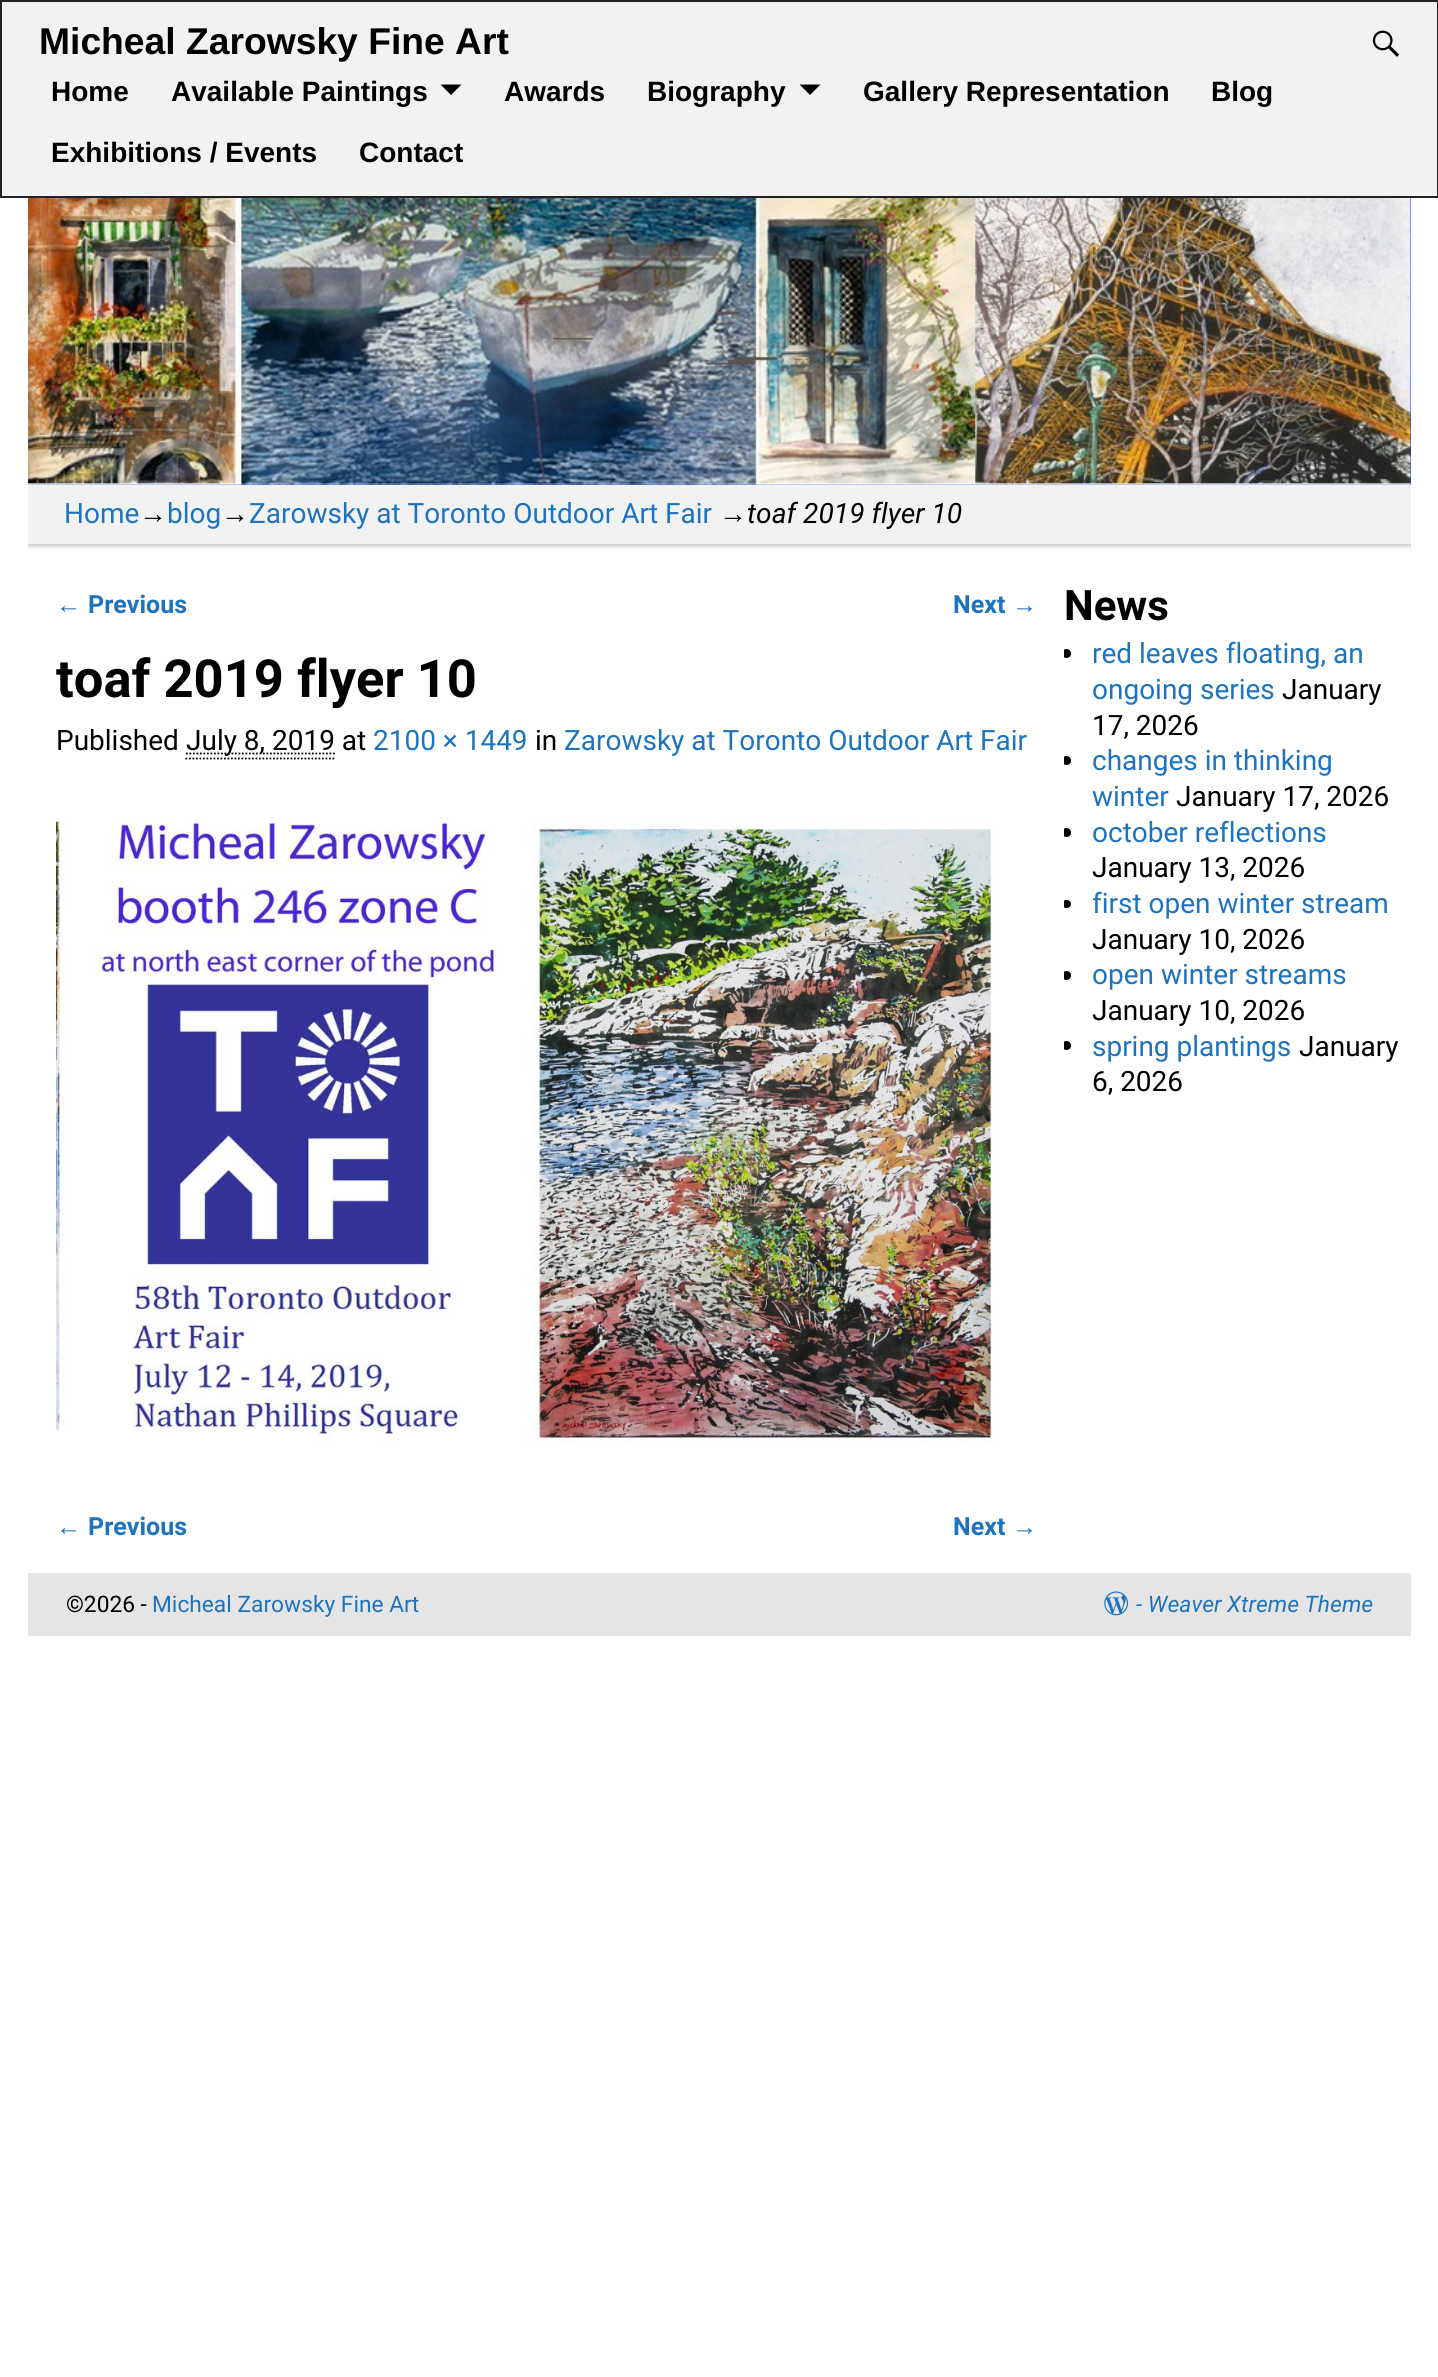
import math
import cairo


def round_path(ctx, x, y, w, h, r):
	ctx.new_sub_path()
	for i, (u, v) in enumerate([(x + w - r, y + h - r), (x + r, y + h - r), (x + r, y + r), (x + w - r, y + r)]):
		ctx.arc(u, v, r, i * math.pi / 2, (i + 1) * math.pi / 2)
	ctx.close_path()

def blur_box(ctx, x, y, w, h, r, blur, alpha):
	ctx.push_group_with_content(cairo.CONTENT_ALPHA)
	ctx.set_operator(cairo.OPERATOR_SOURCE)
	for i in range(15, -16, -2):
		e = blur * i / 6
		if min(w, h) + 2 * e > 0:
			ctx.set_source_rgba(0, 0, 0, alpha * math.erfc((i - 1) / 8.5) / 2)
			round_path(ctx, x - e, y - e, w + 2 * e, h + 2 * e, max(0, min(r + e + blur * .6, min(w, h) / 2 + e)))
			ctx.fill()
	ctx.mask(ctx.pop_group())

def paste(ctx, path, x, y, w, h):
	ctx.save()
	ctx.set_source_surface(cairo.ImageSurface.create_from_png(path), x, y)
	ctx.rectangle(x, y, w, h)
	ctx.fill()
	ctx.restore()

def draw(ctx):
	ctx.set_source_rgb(1, 1, 1)
	ctx.paint()
	ctx.set_source_rgb(0.059, 0.216, 1)
	ctx.rectangle(28, 198, 1383, 287)
	ctx.fill()
	ctx.set_source_rgb(0.949, 0.949, 0.949)
	ctx.rectangle(1, 1, 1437, 196)
	ctx.fill_preserve()
	ctx.set_source_rgb(0.133, 0.133, 0.133)
	ctx.stroke()
	ctx.select_font_face('Liberation Sans', cairo.FONT_SLANT_NORMAL, cairo.FONT_WEIGHT_BOLD)
	ctx.set_font_size(37.25)
	ctx.set_source_rgb(0, 0, 0)
	ctx.move_to(39, 54)
	ctx.show_text('Micheal Zarowsky Fine Art')
	paste(ctx, 'media/1.png', 1372, 30, 27, 27)
	ctx.set_font_size(28)
	ctx.move_to(51, 101)
	ctx.show_text('Home')
	ctx.move_to(171, 101)
	ctx.show_text('Available Paintings')
	ctx.new_path()
	ctx.move_to(440.5, 84.5)
	ctx.line_to(461.5, 84.5)
	ctx.line_to(451, 95)
	ctx.close_path()
	ctx.fill()
	ctx.move_to(504, 101)
	ctx.show_text('Awards')
	ctx.move_to(647, 101)
	ctx.show_text('Biography')
	ctx.new_path()
	ctx.move_to(799.5, 84.5)
	ctx.line_to(820.5, 84.5)
	ctx.line_to(810, 95)
	ctx.close_path()
	ctx.fill()
	for x, y, s in [
		(863, 101, 'Gallery Representation'),
		(1211, 101, 'Blog'),
		(51, 162, 'Exhibitions / Events'),
		(359, 162, 'Contact'),
	]:
		ctx.move_to(x, y)
		ctx.show_text(s)
	ctx.save()
	ctx.rectangle(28, 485, 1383, 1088)
	ctx.clip()
	ctx.set_source_rgb(0, 0, 0)
	blur_box(ctx, 26, 483, 1386, 63, 0, 2.5, 0.25)
	ctx.restore()
	paste(ctx, 'media/2.png', 28, 198, 1383, 287)
	ctx.set_source_rgb(0.949, 0.949, 0.949)
	ctx.rectangle(28, 485, 1383, 59)
	ctx.fill()
	ctx.select_font_face('Roboto')
	ctx.set_source_rgb(0.118, 0.451, 0.745)
	ctx.move_to(64, 523)
	ctx.show_text('Home')
	ctx.select_font_face('Liberation Sans')
	ctx.set_source_rgb(0, 0, 0)
	ctx.move_to(139, 523)
	ctx.show_text('→')
	ctx.select_font_face('Roboto')
	ctx.set_source_rgb(0.118, 0.451, 0.745)
	ctx.move_to(167, 523)
	ctx.show_text('blog')
	ctx.select_font_face('Liberation Sans')
	ctx.set_source_rgb(0, 0, 0)
	ctx.move_to(221, 523)
	ctx.show_text('→')
	ctx.select_font_face('Roboto')
	ctx.set_source_rgb(0.118, 0.451, 0.745)
	ctx.move_to(249, 523)
	ctx.show_text('Zarowsky at Toronto Outdoor Art Fair')
	ctx.select_font_face('Liberation Sans')
	ctx.set_source_rgb(0, 0, 0)
	ctx.move_to(719, 523)
	ctx.show_text('→')
	ctx.select_font_face('Roboto', cairo.FONT_SLANT_ITALIC)
	ctx.move_to(747, 523)
	ctx.show_text('toaf 2019 flyer 10')
	ctx.select_font_face('Liberation Sans', cairo.FONT_SLANT_NORMAL, cairo.FONT_WEIGHT_BOLD)
	ctx.set_font_size(25)
	ctx.set_source_rgb(0.118, 0.451, 0.745)
	ctx.move_to(56, 613)
	ctx.show_text('←')
	ctx.select_font_face('Roboto', cairo.FONT_SLANT_NORMAL, cairo.FONT_WEIGHT_BOLD)
	ctx.move_to(88, 613)
	ctx.show_text('Previous')
	ctx.move_to(953, 613)
	ctx.show_text('Next')
	ctx.select_font_face('Liberation Sans', cairo.FONT_SLANT_NORMAL, cairo.FONT_WEIGHT_BOLD)
	ctx.move_to(1012, 613)
	ctx.show_text('→')
	ctx.select_font_face('Roboto', cairo.FONT_SLANT_NORMAL, cairo.FONT_WEIGHT_BOLD)
	ctx.set_font_size(52.5)
	ctx.set_source_rgb(0, 0, 0)
	ctx.move_to(56, 697)
	ctx.show_text('toaf 2019 flyer 10')
	ctx.select_font_face('Roboto')
	ctx.set_font_size(28)
	ctx.move_to(56, 750)
	ctx.show_text('Published')
	ctx.new_path()
	ctx.move_to(186, 753.5)
	ctx.line_to(335, 753.5)
	ctx.set_line_width(1.8)
	ctx.set_dash([1.75, 1.75])
	ctx.stroke()
	ctx.move_to(186, 750)
	ctx.show_text('July 8, 2019 at')
	ctx.new_path()
	ctx.move_to(185.5, 758.5)
	ctx.line_to(336, 758.5)
	ctx.stroke()
	ctx.set_source_rgb(0.118, 0.451, 0.745)
	ctx.move_to(373, 750)
	ctx.show_text('2100 × 1449')
	ctx.set_source_rgb(0, 0, 0)
	ctx.move_to(535, 750)
	ctx.show_text('in')
	ctx.set_source_rgb(0.118, 0.451, 0.745)
	ctx.move_to(564, 750)
	ctx.show_text('Zarowsky at Toronto Outdoor Art Fair')
	paste(ctx, 'media/3.png', 56, 817, 943, 627)
	ctx.select_font_face('Liberation Sans', cairo.FONT_SLANT_NORMAL, cairo.FONT_WEIGHT_BOLD)
	ctx.set_font_size(25)
	ctx.move_to(56, 1535)
	ctx.show_text('←')
	ctx.select_font_face('Roboto', cairo.FONT_SLANT_NORMAL, cairo.FONT_WEIGHT_BOLD)
	ctx.move_to(88, 1535)
	ctx.show_text('Previous')
	ctx.move_to(953, 1535)
	ctx.show_text('Next')
	ctx.select_font_face('Liberation Sans', cairo.FONT_SLANT_NORMAL, cairo.FONT_WEIGHT_BOLD)
	ctx.move_to(1012, 1535)
	ctx.show_text('→')
	ctx.select_font_face('Roboto', cairo.FONT_SLANT_NORMAL, cairo.FONT_WEIGHT_BOLD)
	ctx.set_font_size(42)
	ctx.set_source_rgb(0, 0, 0)
	ctx.move_to(1064, 620)
	ctx.show_text('News')
	ctx.save()
	ctx.rectangle(1064, 579, 347, 522)
	ctx.clip()
	ctx.arc(1066.5, 653.5, 4.5, 0, 2 * math.pi)
	ctx.fill()
	ctx.restore()
	ctx.select_font_face('Roboto')
	ctx.set_font_size(28)
	ctx.set_source_rgb(0.118, 0.451, 0.745)
	ctx.move_to(1092, 663)
	ctx.show_text('red leaves floating, an')
	ctx.move_to(1092, 699)
	ctx.show_text('ongoing series')
	ctx.set_source_rgb(0, 0, 0)
	ctx.move_to(1282, 699)
	ctx.show_text('January')
	ctx.move_to(1092, 735)
	ctx.show_text('17, 2026')
	ctx.save()
	ctx.rectangle(1064, 579, 347, 522)
	ctx.clip()
	ctx.arc(1066.5, 760.5, 4.5, 0, 2 * math.pi)
	ctx.fill()
	ctx.restore()
	ctx.set_source_rgb(0.118, 0.451, 0.745)
	ctx.move_to(1092, 770)
	ctx.show_text('changes in thinking')
	ctx.move_to(1092, 806)
	ctx.show_text('winter')
	ctx.set_source_rgb(0, 0, 0)
	ctx.move_to(1176, 806)
	ctx.show_text('January 17, 2026')
	ctx.save()
	ctx.rectangle(1064, 579, 347, 522)
	ctx.clip()
	ctx.arc(1066.5, 832.5, 4.5, 0, 2 * math.pi)
	ctx.fill()
	ctx.restore()
	ctx.set_source_rgb(0.118, 0.451, 0.745)
	ctx.move_to(1092, 842)
	ctx.show_text('october reflections')
	ctx.set_source_rgb(0, 0, 0)
	ctx.move_to(1092, 877)
	ctx.show_text('January 13, 2026')
	ctx.save()
	ctx.rectangle(1064, 579, 347, 522)
	ctx.clip()
	round_path(ctx, 1062, 900, 9, 8, 4)
	ctx.fill()
	ctx.restore()
	ctx.set_source_rgb(0.118, 0.451, 0.745)
	ctx.move_to(1092, 913)
	ctx.show_text('first open winter stream')
	ctx.set_source_rgb(0, 0, 0)
	ctx.move_to(1092, 949)
	ctx.show_text('January 10, 2026')
	ctx.save()
	ctx.rectangle(1064, 579, 347, 522)
	ctx.clip()
	ctx.arc(1066.5, 975.5, 4.5, 0, 2 * math.pi)
	ctx.fill()
	ctx.restore()
	ctx.set_source_rgb(0.118, 0.451, 0.745)
	ctx.move_to(1092, 984)
	ctx.show_text('open winter streams')
	ctx.set_source_rgb(0, 0, 0)
	ctx.move_to(1092, 1020)
	ctx.show_text('January 10, 2026')
	ctx.save()
	ctx.rectangle(1064, 579, 347, 522)
	ctx.clip()
	ctx.arc(1066.5, 1045.5, 4.5, 0, 2 * math.pi)
	ctx.fill()
	ctx.restore()
	ctx.set_source_rgb(0.118, 0.451, 0.745)
	ctx.move_to(1092, 1056)
	ctx.show_text('spring plantings')
	ctx.set_source_rgb(0, 0, 0)
	ctx.move_to(1299, 1056)
	ctx.show_text('January')
	ctx.move_to(1092, 1091)
	ctx.show_text('6, 2026')
	ctx.set_source_rgb(0.898, 0.898, 0.898)
	ctx.rectangle(28, 1573, 1383, 63)
	ctx.fill()
	ctx.set_font_size(22.75)
	ctx.set_source_rgb(0, 0, 0)
	ctx.move_to(66, 1612)
	ctx.show_text('©2026 -')
	ctx.set_source_rgb(0.118, 0.451, 0.745)
	ctx.move_to(152, 1612)
	ctx.show_text('Micheal Zarowsky Fine Art')
	paste(ctx, 'media/4.png', 1104, 1591, 25, 25)
	ctx.select_font_face('Roboto', cairo.FONT_SLANT_ITALIC)
	ctx.move_to(1136, 1612)
	ctx.show_text('- Weaver Xtreme Theme')


surface = cairo.ImageSurface(cairo.FORMAT_RGB24, 1438, 2377)
ctx = cairo.Context(surface)
options = cairo.FontOptions()
options.set_hint_metrics(cairo.HINT_METRICS_OFF)
options.set_hint_style(cairo.HINT_STYLE_NONE)
ctx.set_font_options(options)
ctx.set_miter_limit(4)
draw(ctx)
surface.write_to_png('image.png')
